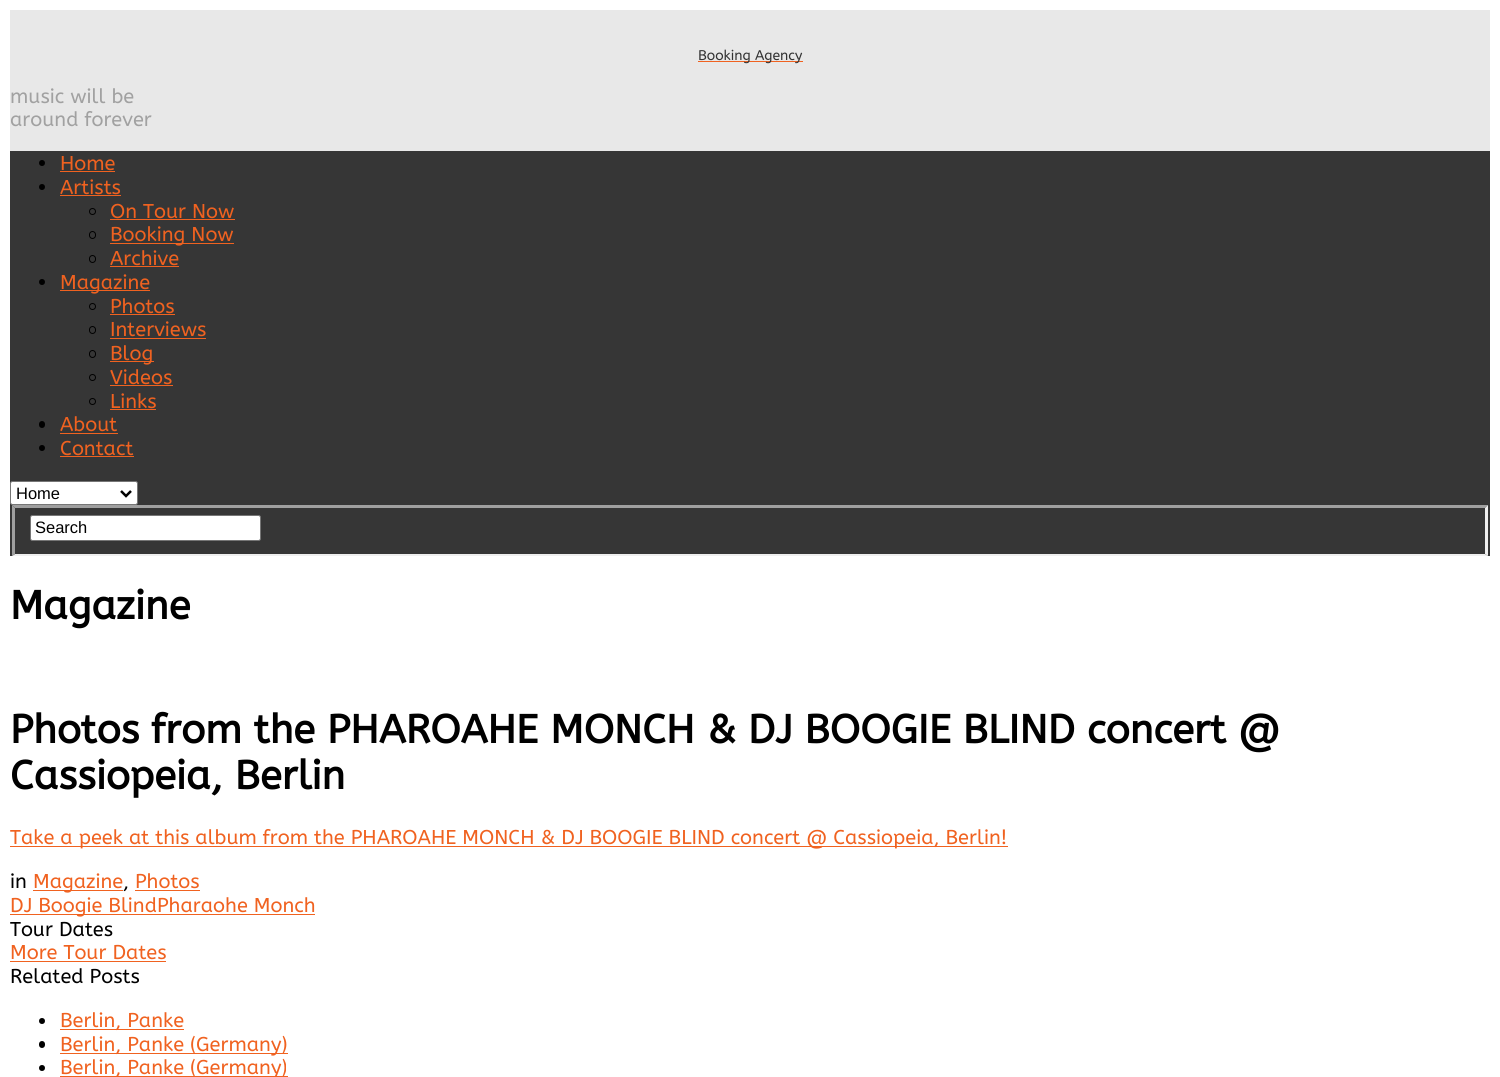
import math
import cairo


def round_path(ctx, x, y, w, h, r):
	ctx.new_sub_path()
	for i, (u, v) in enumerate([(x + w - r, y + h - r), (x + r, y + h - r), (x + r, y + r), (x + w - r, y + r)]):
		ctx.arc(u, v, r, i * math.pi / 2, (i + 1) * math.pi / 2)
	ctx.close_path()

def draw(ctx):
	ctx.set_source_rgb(1, 1, 1)
	ctx.paint()
	ctx.set_source_rgb(0.91, 0.91, 0.91)
	ctx.rectangle(10, 10, 1480, 141)
	ctx.fill()
	ctx.set_source_rgb(0.941, 0.384, 0.125)
	ctx.rectangle(698, 61, 105, 1)
	ctx.fill()
	ctx.select_font_face('ABeeZee')
	ctx.set_font_size(14)
	ctx.set_source_rgb(0.2, 0.2, 0.2)
	ctx.move_to(698, 60)
	ctx.show_text('Booking Agency')
	ctx.set_font_size(20)
	ctx.set_source_rgb(0.631, 0.631, 0.631)
	ctx.move_to(10, 103)
	ctx.show_text('music will be')
	ctx.move_to(10, 126)
	ctx.show_text('around forever')
	ctx.set_source_rgb(0.212, 0.212, 0.212)
	ctx.rectangle(10, 151, 1480, 405)
	ctx.fill()
	ctx.set_source_rgb(0, 0, 0)
	ctx.arc(42, 163, 3, 0, 2 * math.pi)
	ctx.fill()
	ctx.set_source_rgb(0.941, 0.384, 0.125)
	ctx.move_to(60, 170)
	ctx.show_text('Home')
	ctx.rectangle(60, 171, 55, 1)
	ctx.fill()
	ctx.set_source_rgb(0, 0, 0)
	ctx.arc(42, 187, 3, 0, 2 * math.pi)
	ctx.fill()
	ctx.set_source_rgb(0.941, 0.384, 0.125)
	ctx.move_to(60, 194)
	ctx.show_text('Artists')
	ctx.rectangle(60, 195, 61, 1)
	ctx.fill()
	ctx.arc(92.5, 211.5, 3, 0, 2 * math.pi)
	ctx.set_source_rgb(0, 0, 0)
	ctx.set_line_width(1)
	ctx.stroke()
	ctx.set_source_rgb(0.941, 0.384, 0.125)
	ctx.move_to(110, 218)
	ctx.show_text('On Tour Now')
	ctx.rectangle(110, 219, 125, 1)
	ctx.fill()
	round_path(ctx, 89.5, 231.5, 6, 7, 3)
	ctx.set_source_rgb(0, 0, 0)
	ctx.stroke()
	ctx.set_source_rgb(0.941, 0.384, 0.125)
	ctx.rectangle(110, 243, 124, 1)
	ctx.fill()
	ctx.move_to(110, 241)
	ctx.show_text('Booking Now')
	round_path(ctx, 89.5, 255.5, 6, 7, 3)
	ctx.set_source_rgb(0, 0, 0)
	ctx.stroke()
	ctx.set_source_rgb(0.941, 0.384, 0.125)
	ctx.move_to(110, 265)
	ctx.show_text('Archive')
	ctx.rectangle(110, 266, 69, 1)
	ctx.fill()
	ctx.set_source_rgb(0, 0, 0)
	ctx.arc(42, 282, 3, 0, 2 * math.pi)
	ctx.fill()
	ctx.set_source_rgb(0.941, 0.384, 0.125)
	ctx.rectangle(60, 290, 90, 1)
	ctx.fill()
	ctx.move_to(60, 289)
	ctx.show_text('Magazine')
	ctx.new_path()
	ctx.arc(92.5, 306.5, 3, 0, 2 * math.pi)
	ctx.set_source_rgb(0, 0, 0)
	ctx.stroke()
	ctx.set_source_rgb(0.941, 0.384, 0.125)
	ctx.move_to(110, 313)
	ctx.show_text('Photos')
	ctx.rectangle(110, 314, 65, 1)
	ctx.fill()
	round_path(ctx, 89.5, 326.5, 6, 7, 3)
	ctx.set_source_rgb(0, 0, 0)
	ctx.stroke()
	ctx.set_source_rgb(0.941, 0.384, 0.125)
	ctx.move_to(110, 336)
	ctx.show_text('Interviews')
	ctx.rectangle(110, 338, 96, 1)
	ctx.fill()
	round_path(ctx, 89.5, 350.5, 6, 7, 3)
	ctx.set_source_rgb(0, 0, 0)
	ctx.stroke()
	ctx.set_source_rgb(0.941, 0.384, 0.125)
	ctx.rectangle(110, 361, 44, 1)
	ctx.fill()
	ctx.move_to(110, 360)
	ctx.show_text('Blog')
	ctx.new_path()
	ctx.arc(92.5, 377.5, 3, 0, 2 * math.pi)
	ctx.set_source_rgb(0, 0, 0)
	ctx.stroke()
	ctx.set_source_rgb(0.941, 0.384, 0.125)
	ctx.move_to(110, 384)
	ctx.show_text('Videos')
	ctx.rectangle(110, 385, 63, 1)
	ctx.fill()
	ctx.arc(92.5, 401.5, 3, 0, 2 * math.pi)
	ctx.set_source_rgb(0, 0, 0)
	ctx.stroke()
	ctx.set_source_rgb(0.941, 0.384, 0.125)
	ctx.move_to(110, 408)
	ctx.show_text('Links')
	ctx.rectangle(110, 409, 46, 1)
	ctx.fill()
	ctx.set_source_rgb(0, 0, 0)
	round_path(ctx, 39, 421, 6, 7, 3)
	ctx.fill()
	ctx.set_source_rgb(0.941, 0.384, 0.125)
	ctx.move_to(60, 431)
	ctx.show_text('About')
	ctx.rectangle(60, 433, 58, 1)
	ctx.fill()
	ctx.set_source_rgb(0, 0, 0)
	ctx.arc(42, 448, 3, 0, 2 * math.pi)
	ctx.fill()
	ctx.set_source_rgb(0.941, 0.384, 0.125)
	ctx.move_to(60, 455)
	ctx.show_text('Contact')
	ctx.rectangle(60, 456, 74, 1)
	ctx.fill()
	ctx.set_source_rgb(1, 1, 1)
	round_path(ctx, 10.5, 481.5, 127, 23, 2)
	ctx.fill_preserve()
	ctx.set_source_rgb(0.463, 0.463, 0.463)
	ctx.stroke()
	ctx.new_path()
	ctx.move_to(121, 491)
	ctx.line_to(126, 496)
	ctx.line_to(131, 491)
	ctx.set_source_rgb(0, 0, 0)
	ctx.set_line_width(2.5)
	ctx.stroke()
	ctx.select_font_face('Liberation Sans')
	ctx.set_font_size(16.5)
	ctx.move_to(16, 499)
	ctx.show_text('Home')
	ctx.set_source_rgb(0.624, 0.624, 0.624)
	ctx.new_path()
	ctx.move_to(12, 505)
	ctx.line_to(1488, 505)
	ctx.line_to(1485, 508)
	ctx.line_to(15, 508)
	ctx.close_path()
	ctx.fill()
	ctx.set_source_rgb(0.937, 0.937, 0.937)
	ctx.new_path()
	ctx.move_to(1488, 505)
	ctx.line_to(1488, 556)
	ctx.line_to(1485, 554)
	ctx.line_to(1485, 508)
	ctx.close_path()
	ctx.fill()
	ctx.new_path()
	ctx.move_to(1488, 556)
	ctx.line_to(12, 556)
	ctx.line_to(15, 554)
	ctx.line_to(1485, 554)
	ctx.close_path()
	ctx.fill()
	ctx.set_source_rgb(0.624, 0.624, 0.624)
	ctx.new_path()
	ctx.move_to(12, 556)
	ctx.line_to(12, 505)
	ctx.line_to(15, 508)
	ctx.line_to(15, 554)
	ctx.close_path()
	ctx.fill()
	ctx.set_source_rgb(1, 1, 1)
	round_path(ctx, 30.5, 515.5, 230, 25, 2)
	ctx.fill_preserve()
	ctx.set_source_rgb(0.463, 0.463, 0.463)
	ctx.set_line_width(1)
	ctx.stroke()
	ctx.set_source_rgb(0, 0, 0)
	ctx.move_to(35, 533)
	ctx.show_text('Search')
	ctx.select_font_face('ABeeZee', cairo.FONT_SLANT_NORMAL, cairo.FONT_WEIGHT_BOLD)
	ctx.set_font_size(40)
	for x, y, s in [
		(10, 619, 'Magazine'),
		(10, 743, 'Photos from the PHAROAHE MONCH & DJ BOOGIE BLIND concert @'),
		(10, 789, 'Cassiopeia, Berlin'),
	]:
		ctx.move_to(x, y)
		ctx.show_text(s)
	ctx.set_source_rgb(0.941, 0.384, 0.125)
	ctx.rectangle(10, 846, 998, 1)
	ctx.fill()
	ctx.select_font_face('ABeeZee')
	ctx.set_font_size(20)
	ctx.move_to(10, 844)
	ctx.show_text('Take a peek at this album from the PHAROAHE MONCH & DJ BOOGIE BLIND concert @ Cassiopeia, Berlin!')
	ctx.set_source_rgb(0, 0, 0)
	ctx.move_to(10, 888)
	ctx.show_text('in')
	ctx.set_source_rgb(0.941, 0.384, 0.125)
	ctx.rectangle(33, 890, 90, 1)
	ctx.fill()
	ctx.move_to(33, 888)
	ctx.show_text('Magazine')
	ctx.set_source_rgb(0, 0, 0)
	ctx.move_to(123, 888)
	ctx.show_text(',')
	ctx.set_source_rgb(0.941, 0.384, 0.125)
	ctx.move_to(135, 888)
	ctx.show_text('Photos')
	ctx.rectangle(135, 890, 65, 1)
	ctx.fill()
	ctx.rectangle(10, 914, 305, 1)
	ctx.fill()
	ctx.move_to(10, 912)
	ctx.show_text('DJ Boogie BlindPharaohe Monch')
	ctx.set_source_rgb(0, 0, 0)
	ctx.move_to(10, 936)
	ctx.show_text('Tour Dates')
	ctx.set_source_rgb(0.941, 0.384, 0.125)
	ctx.move_to(10, 959)
	ctx.show_text('More Tour Dates')
	ctx.rectangle(10, 961, 156, 1)
	ctx.fill()
	ctx.set_source_rgb(0, 0, 0)
	ctx.move_to(10, 983)
	ctx.show_text('Related Posts')
	ctx.new_path()
	ctx.arc(42, 1021, 3, 0, 2 * math.pi)
	ctx.fill()
	ctx.set_source_rgb(0.941, 0.384, 0.125)
	ctx.rectangle(60, 1029, 124, 1)
	ctx.fill()
	ctx.move_to(60, 1027)
	ctx.show_text('Berlin, Panke')
	ctx.set_source_rgb(0, 0, 0)
	round_path(ctx, 39, 1041, 6, 7, 3)
	ctx.fill()
	ctx.set_source_rgb(0.941, 0.384, 0.125)
	ctx.rectangle(60, 1053, 228, 1)
	ctx.fill()
	ctx.move_to(60, 1051)
	ctx.show_text('Berlin, Panke (Germany)')
	ctx.set_source_rgb(0, 0, 0)
	ctx.new_path()
	ctx.arc(42, 1068, 3, 0, 2 * math.pi)
	ctx.fill()
	ctx.set_source_rgb(0.941, 0.384, 0.125)
	ctx.rectangle(60, 1076, 228, 1)
	ctx.fill()
	ctx.move_to(60, 1074)
	ctx.show_text('Berlin, Panke (Germany)')


surface = cairo.ImageSurface(cairo.FORMAT_RGB24, 1500, 1077)
ctx = cairo.Context(surface)
options = cairo.FontOptions()
options.set_hint_metrics(cairo.HINT_METRICS_OFF)
options.set_hint_style(cairo.HINT_STYLE_NONE)
ctx.set_font_options(options)
ctx.set_miter_limit(4)
draw(ctx)
surface.write_to_png('image.png')
